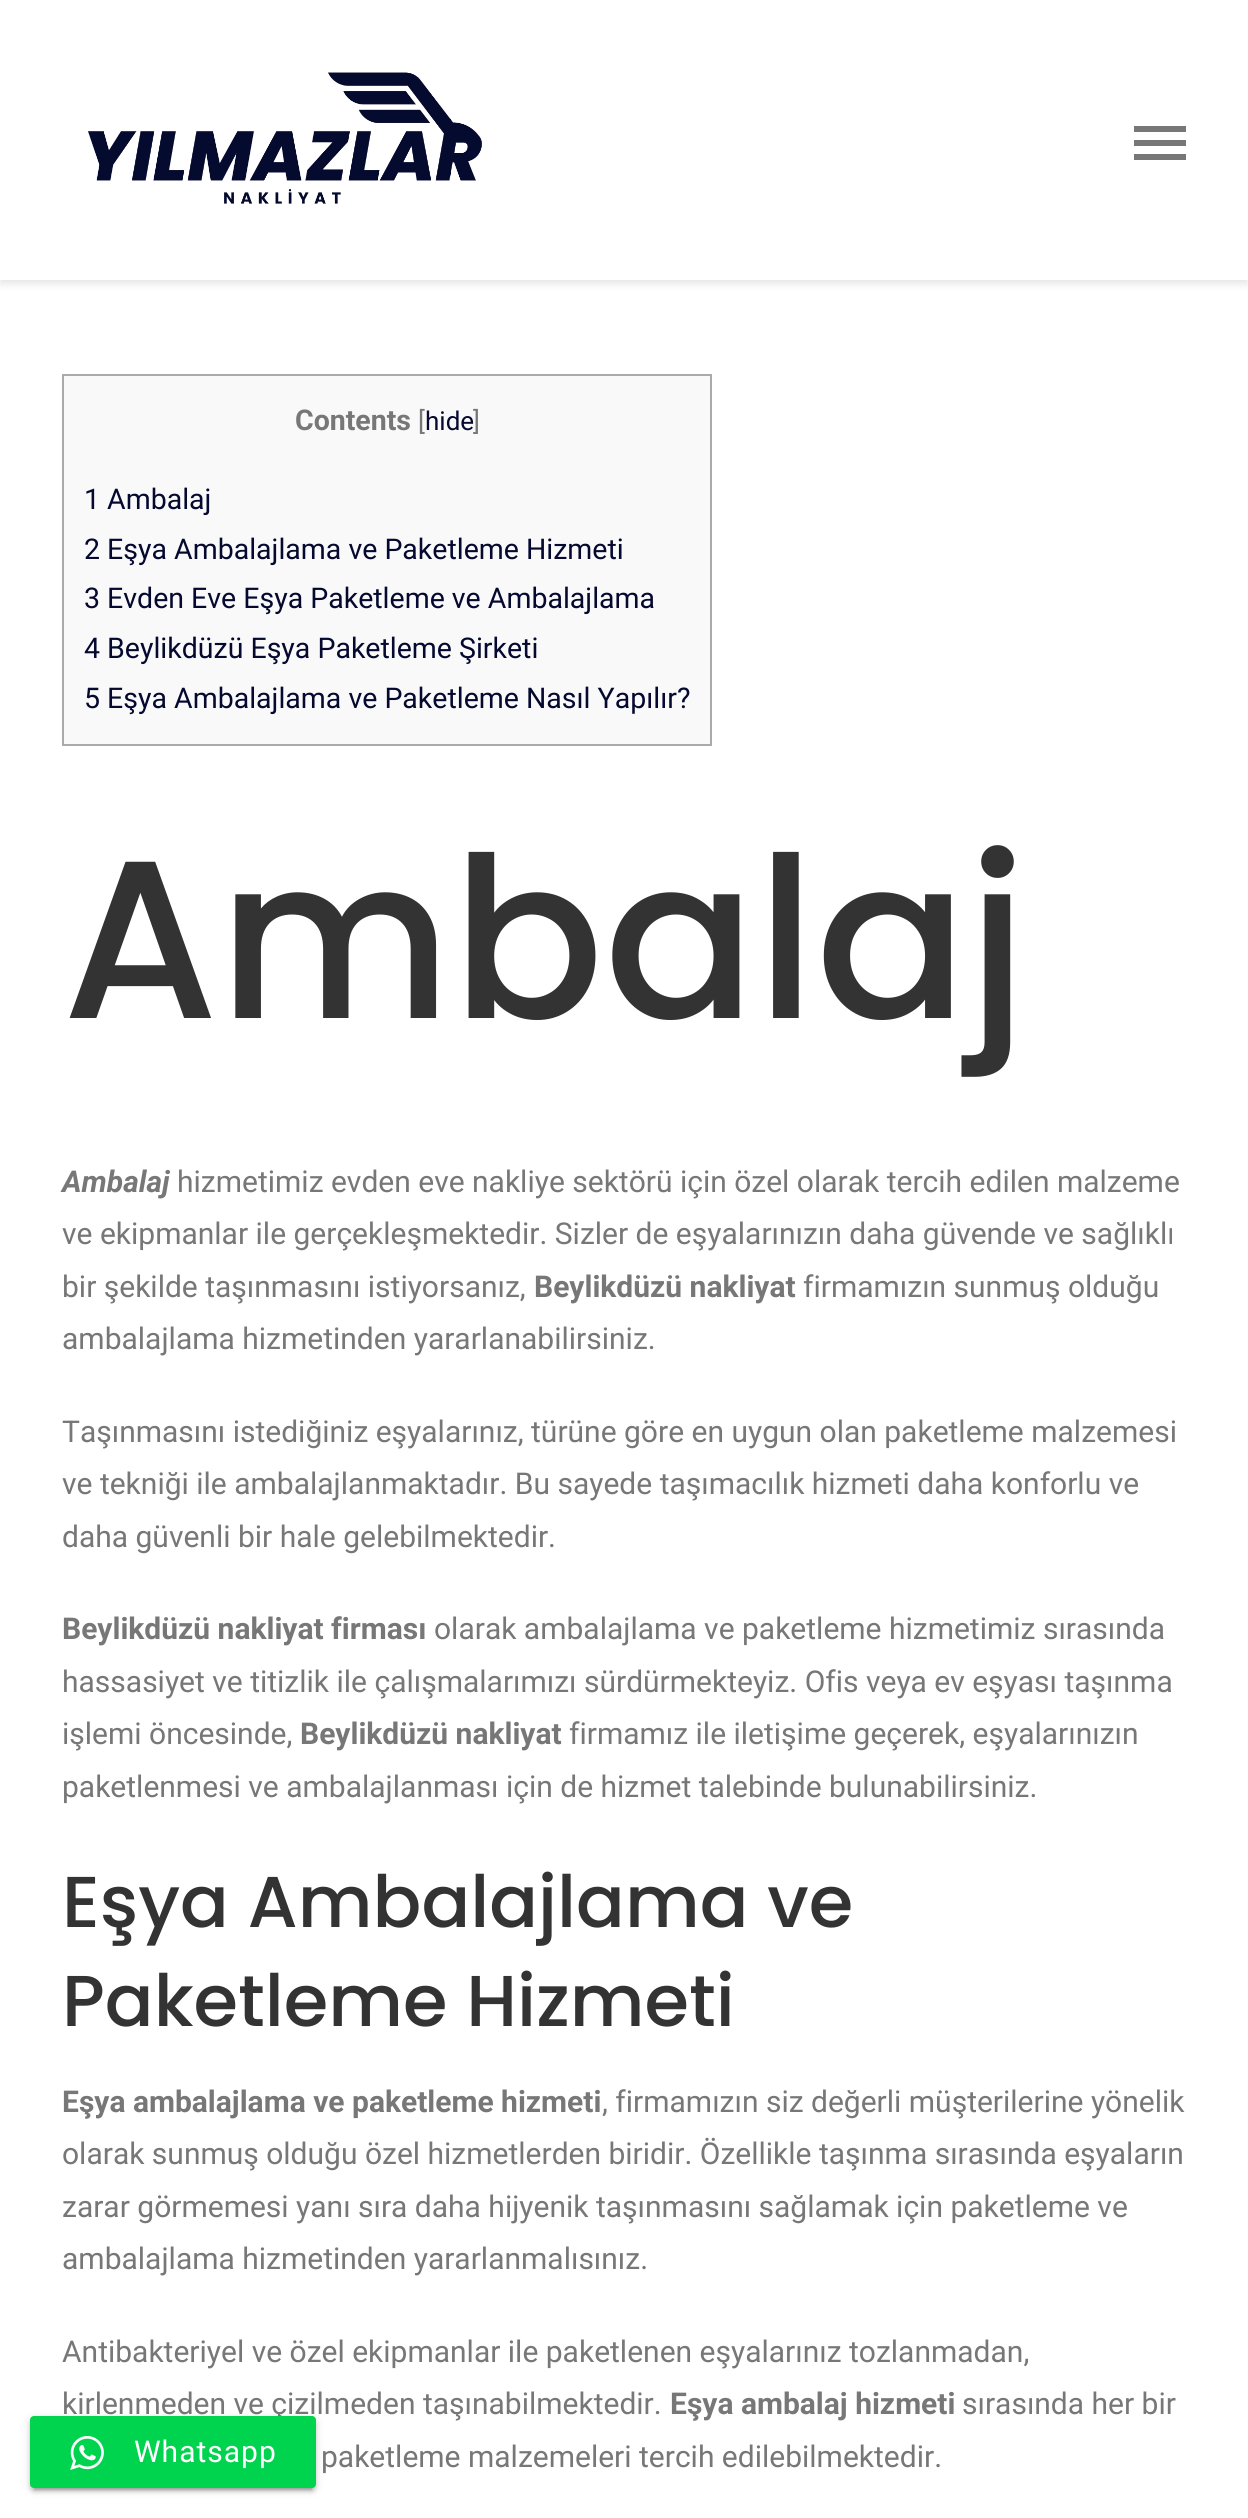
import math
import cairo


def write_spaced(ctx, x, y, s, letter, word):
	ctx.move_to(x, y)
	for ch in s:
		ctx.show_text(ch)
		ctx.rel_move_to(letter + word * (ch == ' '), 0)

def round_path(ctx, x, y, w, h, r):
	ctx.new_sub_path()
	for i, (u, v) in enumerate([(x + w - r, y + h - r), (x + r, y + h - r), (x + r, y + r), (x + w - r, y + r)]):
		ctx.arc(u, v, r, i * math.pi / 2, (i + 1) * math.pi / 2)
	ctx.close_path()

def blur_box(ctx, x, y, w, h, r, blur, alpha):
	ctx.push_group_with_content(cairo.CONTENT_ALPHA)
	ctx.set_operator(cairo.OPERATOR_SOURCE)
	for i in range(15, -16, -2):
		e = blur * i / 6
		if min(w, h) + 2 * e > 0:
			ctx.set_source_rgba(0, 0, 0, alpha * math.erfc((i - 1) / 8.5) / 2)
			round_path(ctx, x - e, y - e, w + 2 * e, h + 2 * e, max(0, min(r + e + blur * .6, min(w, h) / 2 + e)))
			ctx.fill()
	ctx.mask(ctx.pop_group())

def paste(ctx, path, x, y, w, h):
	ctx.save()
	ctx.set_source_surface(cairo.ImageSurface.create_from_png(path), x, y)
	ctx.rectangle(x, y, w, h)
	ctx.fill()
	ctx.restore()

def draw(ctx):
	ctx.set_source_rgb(1, 1, 1)
	ctx.paint()
	ctx.set_source_rgb(0, 0, 0)
	blur_box(ctx, 0, 4, 1248, 280, 0, 4, 0.1)
	ctx.set_source_rgb(1, 1, 1)
	ctx.rectangle(0, 0, 1248, 280)
	ctx.fill()
	paste(ctx, 'media/1.png', 88, 72, 394, 132)
	ctx.set_source_rgb(0.467, 0.467, 0.467)
	ctx.rectangle(1134, 126, 52, 6)
	ctx.rectangle(1134, 140, 52, 6)
	ctx.rectangle(1134, 154, 52, 6)
	ctx.fill()
	ctx.set_source_rgb(0.976, 0.976, 0.976)
	ctx.rectangle(63, 375, 648, 370)
	ctx.fill_preserve()
	ctx.set_source_rgb(0.667, 0.667, 0.667)
	ctx.stroke()
	ctx.select_font_face('Roboto', cairo.FONT_SLANT_NORMAL, cairo.FONT_WEIGHT_BOLD)
	ctx.set_font_size(28.5)
	ctx.set_source_rgb(0.467, 0.467, 0.467)
	ctx.move_to(295, 430)
	ctx.show_text('Contents')
	ctx.select_font_face('Roboto')
	ctx.set_font_size(26)
	ctx.move_to(418, 430)
	ctx.show_text('[')
	ctx.set_source_rgb(0.02, 0.039, 0.188)
	ctx.move_to(425, 430)
	ctx.show_text('hide')
	ctx.set_source_rgb(0.467, 0.467, 0.467)
	ctx.move_to(473, 430)
	ctx.show_text(']')
	ctx.set_font_size(28.5)
	ctx.set_source_rgb(0.02, 0.039, 0.188)
	for x, y, s in [
		(84, 509, '1 Ambalaj'),
		(84, 559, '2 Eşya Ambalajlama ve Paketleme Hizmeti'),
		(84, 608, '3 Evden Eve Eşya Paketleme ve Ambalajlama'),
		(84, 658, '4 Beylikdüzü Eşya Paketleme Şirketi'),
		(84, 708, '5 Eşya Ambalajlama ve Paketleme Nasıl Yapılır?'),
	]:
		ctx.move_to(x, y)
		ctx.show_text(s)
	ctx.select_font_face('Poppins Medium')
	ctx.set_font_size(224.5)
	ctx.set_source_rgb(0.2, 0.2, 0.2)
	ctx.move_to(62, 1018)
	ctx.show_text('Ambalaj')
	ctx.select_font_face('Roboto', cairo.FONT_SLANT_ITALIC, cairo.FONT_WEIGHT_BOLD)
	ctx.set_font_size(30)
	ctx.set_source_rgb(0.467, 0.467, 0.467)
	ctx.move_to(62, 1192)
	ctx.show_text('Ambalaj')
	ctx.select_font_face('Roboto')
	for x, y, s in [
		(177, 1192, 'hizmetimiz evden eve nakliye sektörü için özel olarak tercih edilen malzeme'),
		(62, 1244, 've ekipmanlar ile gerçekleşmektedir. Sizler de eşyalarınızın daha güvende ve sağlıklı'),
		(62, 1297, 'bir şekilde taşınmasını istiyorsanız,'),
	]:
		ctx.move_to(x, y)
		ctx.show_text(s)
	ctx.select_font_face('Roboto', cairo.FONT_SLANT_NORMAL, cairo.FONT_WEIGHT_BOLD)
	ctx.move_to(534, 1297)
	ctx.show_text('Beylikdüzü nakliyat')
	ctx.select_font_face('Roboto')
	for x, y, s in [
		(803, 1297, 'firmamızın sunmuş olduğu'),
		(62, 1349, 'ambalajlama hizmetinden yararlanabilirsiniz.'),
		(62, 1442, 'Taşınmasını istediğiniz eşyalarınız, türüne göre en uygun olan paketleme malzemesi'),
		(62, 1494, 've tekniği ile ambalajlanmaktadır. Bu sayede taşımacılık hizmeti daha konforlu ve'),
		(62, 1547, 'daha güvenli bir hale gelebilmektedir.'),
	]:
		ctx.move_to(x, y)
		ctx.show_text(s)
	ctx.select_font_face('Roboto', cairo.FONT_SLANT_NORMAL, cairo.FONT_WEIGHT_BOLD)
	ctx.move_to(62, 1639)
	ctx.show_text('Beylikdüzü nakliyat firması')
	ctx.select_font_face('Roboto')
	for x, y, s in [
		(434, 1639, 'olarak ambalajlama ve paketleme hizmetimiz sırasında'),
		(62, 1692, 'hassasiyet ve titizlik ile çalışmalarımızı sürdürmekteyiz. Ofis veya ev eşyası taşınma'),
		(62, 1744, 'işlemi öncesinde,'),
	]:
		ctx.move_to(x, y)
		ctx.show_text(s)
	ctx.select_font_face('Roboto', cairo.FONT_SLANT_NORMAL, cairo.FONT_WEIGHT_BOLD)
	ctx.move_to(300, 1744)
	ctx.show_text('Beylikdüzü nakliyat')
	ctx.select_font_face('Roboto')
	ctx.move_to(569, 1744)
	ctx.show_text('firmamız ile iletişime geçerek, eşyalarınızın')
	ctx.move_to(62, 1797)
	ctx.show_text('paketlenmesi ve ambalajlanması için de hizmet talebinde bulunabilirsiniz.')
	ctx.select_font_face('Poppins Medium')
	ctx.set_font_size(72)
	ctx.set_source_rgb(0.2, 0.2, 0.2)
	ctx.move_to(62, 1927)
	ctx.show_text('Eşya Ambalajlama ve')
	ctx.move_to(62, 2026)
	ctx.show_text('Paketleme Hizmeti')
	ctx.select_font_face('Roboto', cairo.FONT_SLANT_NORMAL, cairo.FONT_WEIGHT_BOLD)
	ctx.set_font_size(30)
	ctx.set_source_rgb(0.467, 0.467, 0.467)
	ctx.move_to(62, 2112)
	ctx.show_text('Eşya ambalajlama ve paketleme hizmeti')
	ctx.select_font_face('Roboto')
	for x, y, s in [
		(602, 2112, ', firmamızın siz değerli müşterilerine yönelik'),
		(62, 2164, 'olarak sunmuş olduğu özel hizmetlerden biridir. Özellikle taşınma sırasında eşyaların'),
		(62, 2217, 'zarar görmemesi yanı sıra daha hijyenik taşınmasını sağlamak için paketleme ve'),
		(62, 2269, 'ambalajlama hizmetinden yararlanmalısınız.'),
		(62, 2362, 'Antibakteriyel ve özel ekipmanlar ile paketlenen eşyalarınız tozlanmadan,'),
		(62, 2414, 'kirlenmeden ve çizilmeden taşınabilmektedir.'),
	]:
		ctx.move_to(x, y)
		ctx.show_text(s)
	ctx.select_font_face('Roboto', cairo.FONT_SLANT_NORMAL, cairo.FONT_WEIGHT_BOLD)
	ctx.move_to(670, 2414)
	ctx.show_text('Eşya ambalaj hizmeti')
	ctx.select_font_face('Roboto')
	ctx.move_to(962, 2414)
	ctx.show_text('sırasında her bir')
	ctx.move_to(321, 2467)
	ctx.show_text('paketleme malzemeleri tercih edilebilmektedir.')
	ctx.set_source_rgb(0, 0, 0)
	blur_box(ctx, 34, 2426, 278, 64, 0, 1, 0.2)
	blur_box(ctx, 30, 2418, 286, 72, 4, 5, 0.12)
	blur_box(ctx, 30, 2420, 286, 72, 4, 2, 0.14)
	ctx.set_source_rgb(0, 0.827, 0.302)
	round_path(ctx, 30, 2416, 286, 72, 4)
	ctx.fill()
	paste(ctx, 'media/2.png', 70, 2436, 34, 34)
	ctx.set_source_rgb(1, 1, 1)
	write_spaced(ctx, 134, 2462, 'Whatsapp', 1, 0)


surface = cairo.ImageSurface(cairo.FORMAT_RGB24, 1248, 2518)
ctx = cairo.Context(surface)
options = cairo.FontOptions()
options.set_hint_metrics(cairo.HINT_METRICS_OFF)
options.set_hint_style(cairo.HINT_STYLE_NONE)
ctx.set_font_options(options)
ctx.set_miter_limit(4)
draw(ctx)
surface.write_to_png('image.png')
